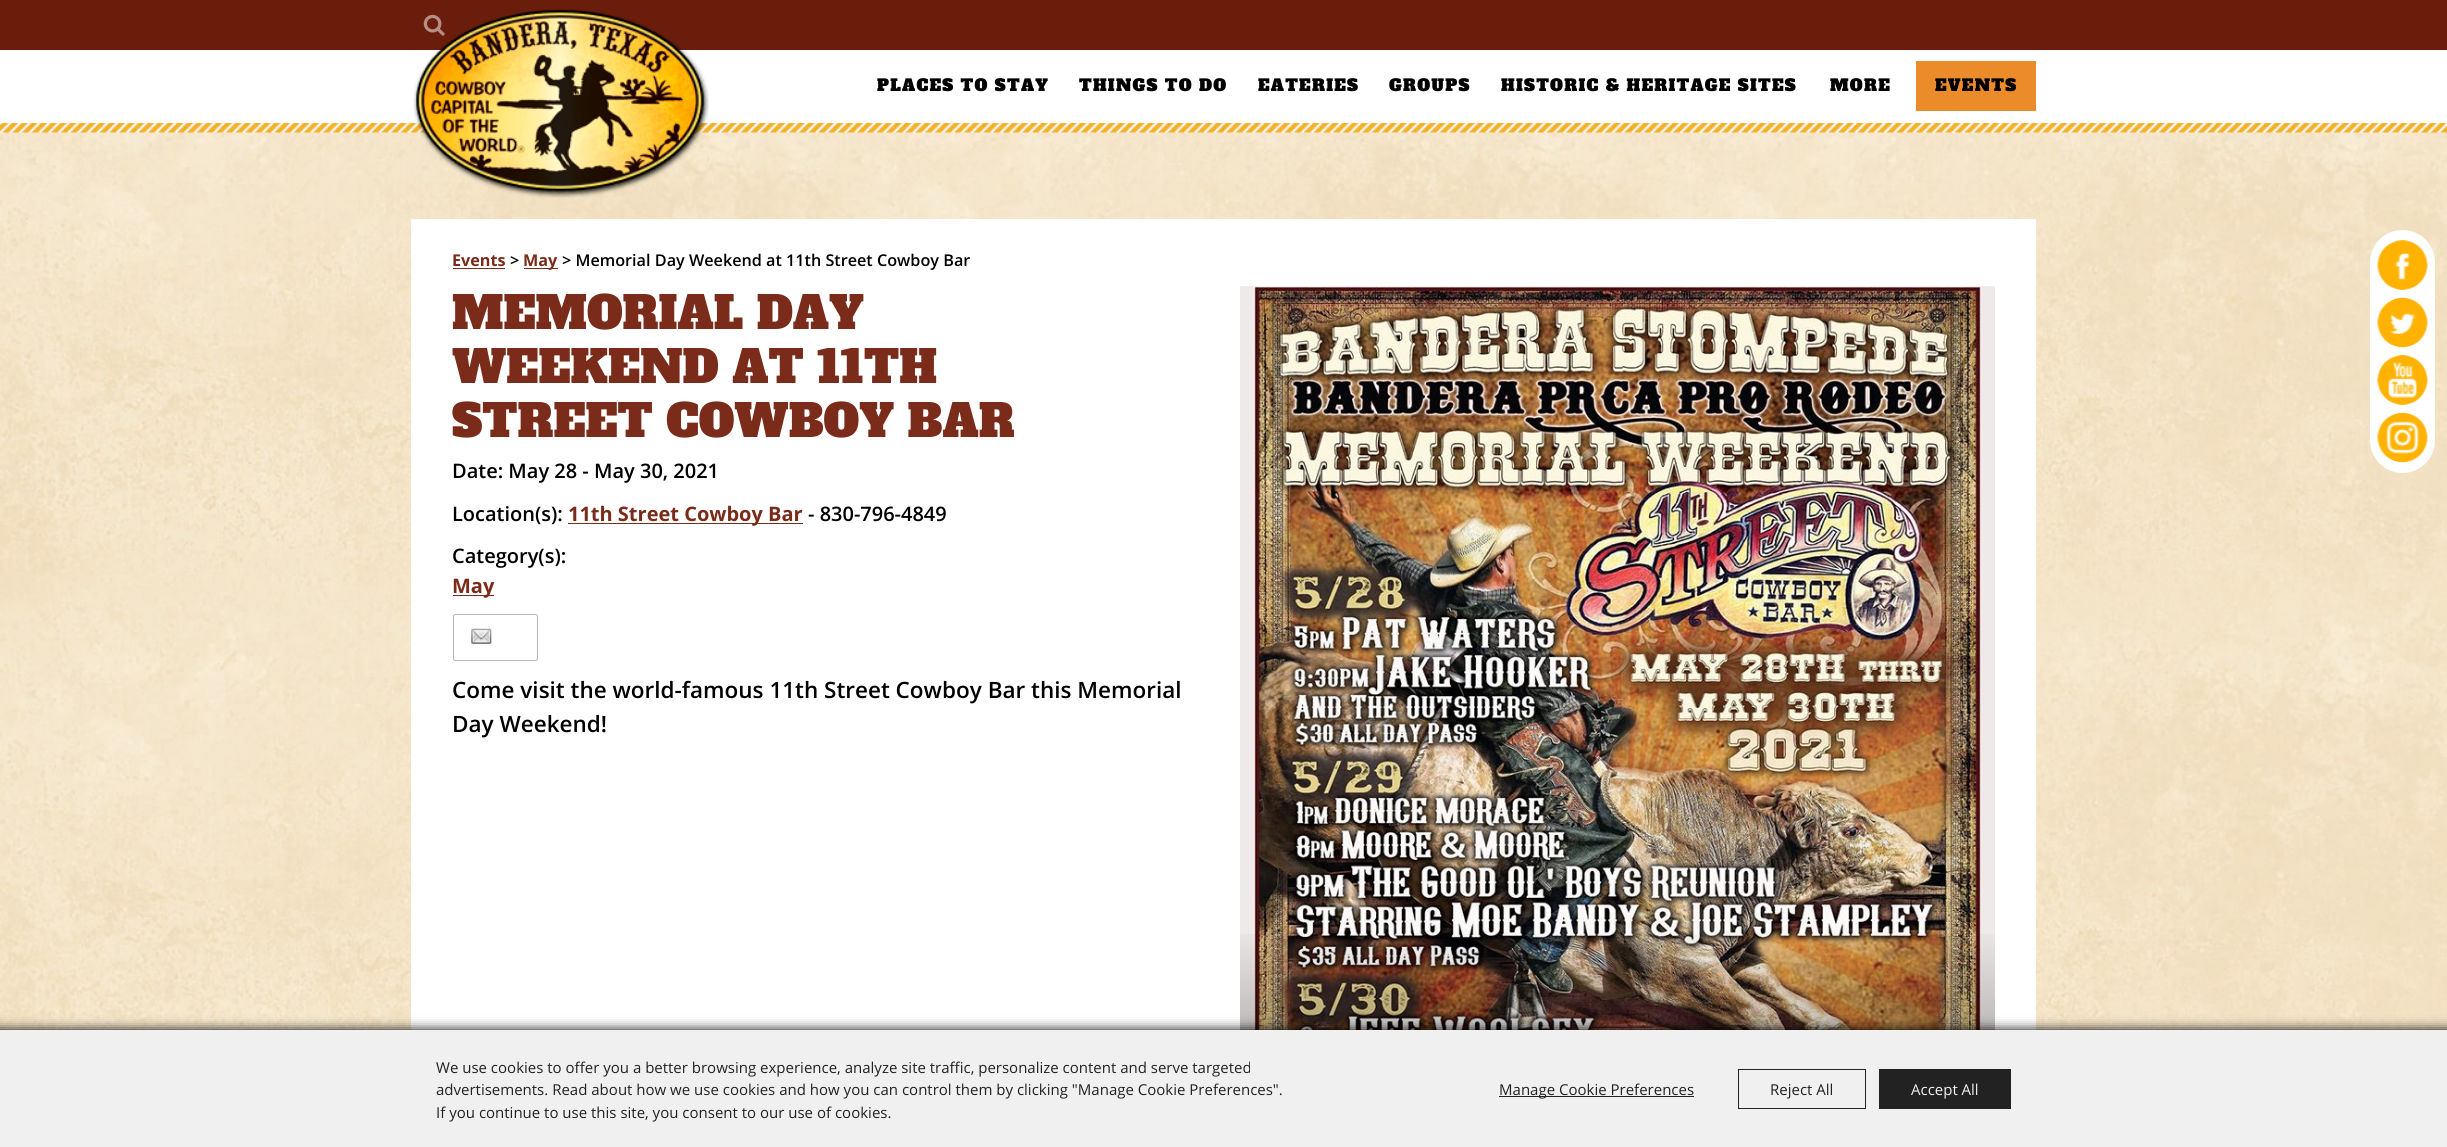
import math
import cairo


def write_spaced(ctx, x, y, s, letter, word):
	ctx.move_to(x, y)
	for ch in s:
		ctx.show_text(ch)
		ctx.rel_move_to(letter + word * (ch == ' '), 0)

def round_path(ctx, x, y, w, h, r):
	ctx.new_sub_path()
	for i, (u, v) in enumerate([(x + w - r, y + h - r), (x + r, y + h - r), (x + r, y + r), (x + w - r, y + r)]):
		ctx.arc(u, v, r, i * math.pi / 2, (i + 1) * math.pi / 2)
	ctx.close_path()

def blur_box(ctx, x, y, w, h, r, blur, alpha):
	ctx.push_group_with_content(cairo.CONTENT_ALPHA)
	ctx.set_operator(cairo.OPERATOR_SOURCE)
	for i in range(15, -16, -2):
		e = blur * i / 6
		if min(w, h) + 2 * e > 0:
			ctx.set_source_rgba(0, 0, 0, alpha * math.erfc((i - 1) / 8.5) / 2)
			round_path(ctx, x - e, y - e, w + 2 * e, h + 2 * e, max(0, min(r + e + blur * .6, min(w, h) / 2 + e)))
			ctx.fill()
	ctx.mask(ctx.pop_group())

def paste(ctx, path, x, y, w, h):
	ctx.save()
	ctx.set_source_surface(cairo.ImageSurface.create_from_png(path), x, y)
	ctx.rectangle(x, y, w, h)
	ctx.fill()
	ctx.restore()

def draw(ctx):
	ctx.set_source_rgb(1, 1, 1)
	ctx.paint()
	paste(ctx, 'media/1.png', 0, 132, 2447, 898)
	ctx.set_source_rgb(0.42, 0.114, 0.043)
	ctx.rectangle(0, 0, 2447, 50)
	ctx.fill()
	paste(ctx, 'media/3.png', 423, 14, 22, 22)
	paste(ctx, 'media/4.png', 0, 123, 2447, 10)
	paste(ctx, 'media/2.png', 413, 9, 296, 189)
	ctx.select_font_face('Alfa Slab One')
	ctx.set_font_size(16.25)
	ctx.set_source_rgb(0, 0, 0)
	for x, y, s in [
		(877, 91, 'PLACES TO STAY'),
		(1079, 91, 'THINGS TO DO'),
		(1258, 91, 'EATERIES'),
		(1389, 91, 'GROUPS'),
		(1501, 91, 'HISTORIC & HERITAGE SITES'),
		(1830, 91, 'MORE'),
	]:
		write_spaced(ctx, x, y, s, 1.25, 0)
	ctx.set_source_rgb(0.922, 0.545, 0.165)
	ctx.rectangle(1916, 61, 120, 50)
	ctx.fill()
	ctx.set_source_rgb(0, 0, 0)
	write_spaced(ctx, 1935, 91, 'EVENTS', 1.25, 0)
	ctx.set_source_rgb(1, 1, 1)
	ctx.rectangle(411, 219, 1625, 811)
	ctx.fill()
	ctx.select_font_face('Open Sans', cairo.FONT_SLANT_NORMAL, cairo.FONT_WEIGHT_BOLD)
	ctx.set_font_size(16.2)
	ctx.set_source_rgb(0.482, 0.169, 0.098)
	ctx.move_to(452, 266)
	ctx.show_text('Events')
	ctx.rectangle(453, 268, 52, 1)
	ctx.fill()
	ctx.select_font_face('Open Sans SemiBold')
	ctx.set_source_rgb(0, 0, 0)
	ctx.move_to(510, 266)
	ctx.show_text('>')
	ctx.set_source_rgb(0.482, 0.169, 0.098)
	ctx.rectangle(524, 268, 34, 1)
	ctx.fill()
	ctx.select_font_face('Open Sans', cairo.FONT_SLANT_NORMAL, cairo.FONT_WEIGHT_BOLD)
	ctx.move_to(523, 266)
	ctx.show_text('May')
	ctx.select_font_face('Open Sans SemiBold')
	ctx.set_source_rgb(0, 0, 0)
	ctx.move_to(562, 266)
	ctx.show_text('> Memorial Day Weekend at 11th Street Cowboy Bar')
	ctx.select_font_face('Alfa Slab One')
	ctx.set_font_size(45)
	ctx.set_source_rgb(0.482, 0.169, 0.098)
	for x, y, s in [
		(452, 329, 'MEMORIAL DAY'),
		(452, 383, 'WEEKEND AT 11TH'),
		(452, 437, 'STREET COWBOY BAR'),
	]:
		ctx.move_to(x, y)
		ctx.show_text(s)
	ctx.select_font_face('Open Sans SemiBold')
	ctx.set_font_size(20)
	ctx.set_source_rgb(0, 0, 0)
	ctx.move_to(452, 478)
	ctx.show_text('Date: May 28 - May 30, 2021')
	ctx.move_to(452, 521)
	ctx.show_text('Location(s):')
	ctx.set_source_rgb(0.482, 0.169, 0.098)
	ctx.rectangle(568, 523, 235, 1)
	ctx.fill()
	ctx.select_font_face('Open Sans', cairo.FONT_SLANT_NORMAL, cairo.FONT_WEIGHT_BOLD)
	ctx.move_to(568, 521)
	ctx.show_text('11th Street Cowboy Bar')
	ctx.select_font_face('Open Sans SemiBold')
	ctx.set_source_rgb(0, 0, 0)
	ctx.move_to(808, 521)
	ctx.show_text('- 830-796-4849')
	ctx.move_to(452, 563)
	ctx.show_text('Category(s):')
	ctx.set_source_rgb(0.482, 0.169, 0.098)
	ctx.rectangle(453, 595, 41, 1)
	ctx.fill()
	ctx.select_font_face('Open Sans', cairo.FONT_SLANT_NORMAL, cairo.FONT_WEIGHT_BOLD)
	ctx.move_to(452, 593)
	ctx.show_text('May')
	round_path(ctx, 453.5, 614.5, 84, 46, 2)
	ctx.set_source_rgb(0.714, 0.714, 0.714)
	ctx.set_line_width(1)
	ctx.stroke()
	paste(ctx, 'media/5.png', 471, 628, 21, 16)
	ctx.select_font_face('Open Sans SemiBold')
	ctx.set_font_size(22.5)
	ctx.set_source_rgb(0, 0, 0)
	ctx.move_to(452, 698)
	ctx.show_text('Come visit the world-famous 11th Street Cowboy Bar this Memorial')
	ctx.move_to(452, 732)
	ctx.show_text('Day Weekend!')
	paste(ctx, 'media/6.png', 1240, 286, 755, 744)
	gradient = cairo.LinearGradient(1618, 286, 1618, 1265)
	gradient.add_color_stop_rgba(0.65, 0, 0, 0, 0)
	gradient.add_color_stop_rgba(1, 0, 0, 0, 0.65)
	ctx.set_source(gradient)
	ctx.rectangle(1240, 934, 755, 96)
	ctx.fill()
	ctx.set_source_rgb(1, 1, 1)
	round_path(ctx, 2370, 230, 65, 243, 32.5)
	ctx.fill()
	paste(ctx, 'media/7.png', 2377, 240, 51, 50)
	paste(ctx, 'media/8.png', 2377, 297, 51, 51)
	paste(ctx, 'media/9.png', 2377, 355, 51, 50)
	paste(ctx, 'media/10.png', 2377, 412, 51, 51)
	ctx.set_source_rgb(0, 0, 0)
	blur_box(ctx, -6, 1030, 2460, 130, 0, 6, 1)
	ctx.set_source_rgb(0.941, 0.941, 0.941)
	ctx.rectangle(0, 1030, 2447, 117)
	ctx.fill()
	ctx.select_font_face('Open Sans')
	ctx.set_font_size(15)
	ctx.set_source_rgb(0.133, 0.133, 0.133)
	for x, y, s in [
		(436, 1073, 'We use cookies to offer you a better browsing experience, analyze site traffic, personalize content and serve targeted'),
		(436, 1095, 'advertisements. Read about how we use cookies and how you can control them by clicking "Manage Cookie Preferences".'),
		(436, 1118, 'If you continue to use this site, you consent to our use of cookies.'),
	]:
		ctx.move_to(x, y)
		ctx.show_text(s)
	ctx.rectangle(1499, 1096, 195, 1)
	ctx.fill()
	ctx.move_to(1499, 1095)
	ctx.show_text('Manage Cookie Preferences')
	ctx.rectangle(1738.5, 1069.5, 127, 39)
	ctx.stroke()
	ctx.move_to(1770, 1095)
	ctx.show_text('Reject All')
	ctx.rectangle(1879, 1069, 132, 40)
	ctx.fill()
	ctx.set_source_rgb(0.941, 0.941, 0.941)
	ctx.move_to(1911, 1095)
	ctx.show_text('Accept All')


surface = cairo.ImageSurface(cairo.FORMAT_RGB24, 2447, 1147)
ctx = cairo.Context(surface)
options = cairo.FontOptions()
options.set_hint_metrics(cairo.HINT_METRICS_OFF)
options.set_hint_style(cairo.HINT_STYLE_NONE)
ctx.set_font_options(options)
ctx.set_miter_limit(4)
draw(ctx)
surface.write_to_png('image.png')
